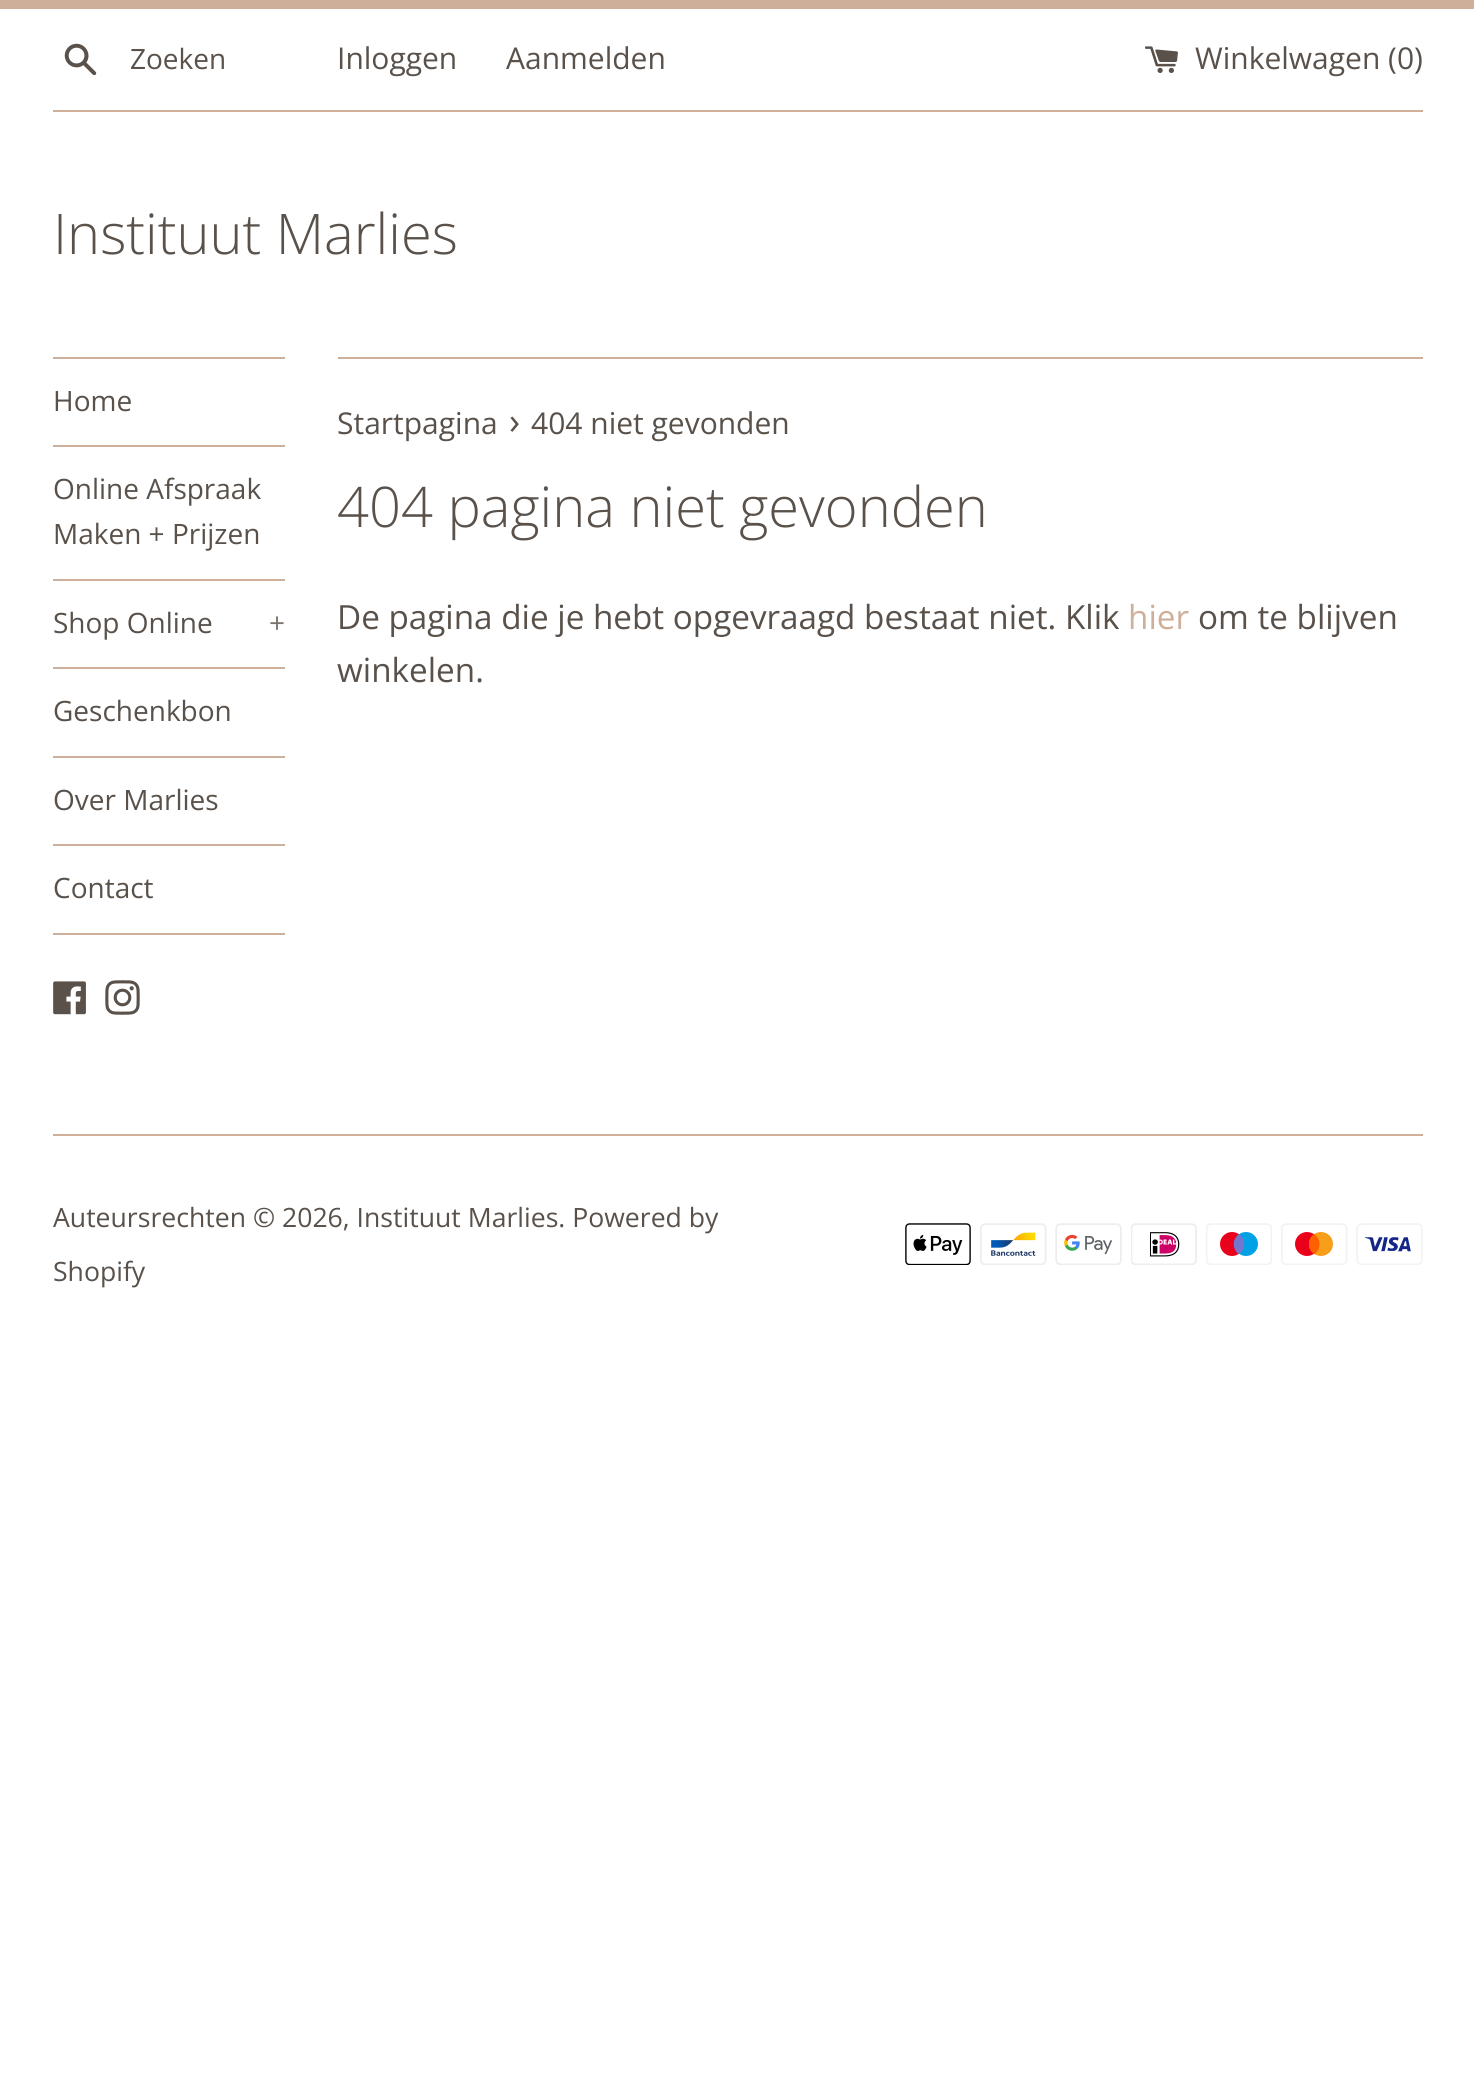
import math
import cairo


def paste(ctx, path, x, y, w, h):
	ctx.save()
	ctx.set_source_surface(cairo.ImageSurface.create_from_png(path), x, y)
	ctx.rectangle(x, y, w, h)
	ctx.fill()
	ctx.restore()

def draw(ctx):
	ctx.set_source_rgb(1, 1, 1)
	ctx.paint()
	ctx.set_source_rgb(0.808, 0.686, 0.6)
	ctx.rectangle(0, 0, 1474, 9)
	ctx.fill()
	paste(ctx, 'media/1.png', 64, 43, 33, 33)
	ctx.select_font_face('Open Sans')
	ctx.set_font_size(28)
	ctx.set_source_rgb(0.349, 0.318, 0.29)
	ctx.move_to(130, 69)
	ctx.show_text('Zoeken')
	ctx.set_font_size(30)
	ctx.move_to(337, 69)
	ctx.show_text('Inloggen')
	ctx.move_to(506, 69)
	ctx.show_text('Aanmelden')
	paste(ctx, 'media/2.png', 1145, 46, 33, 27)
	ctx.move_to(1195, 69)
	ctx.show_text('Winkelwagen (0)')
	ctx.set_source_rgb(0.808, 0.686, 0.6)
	ctx.rectangle(53, 110, 1370, 2)
	ctx.fill()
	ctx.select_font_face('Open Sans Light')
	ctx.set_font_size(56)
	ctx.set_source_rgb(0.349, 0.318, 0.29)
	ctx.move_to(53, 254)
	ctx.show_text('Instituut Marlies')
	ctx.set_source_rgb(0.808, 0.686, 0.6)
	ctx.rectangle(53, 357, 232, 2)
	ctx.fill()
	ctx.rectangle(53, 445, 232, 2)
	ctx.fill()
	ctx.select_font_face('Open Sans')
	ctx.set_font_size(28)
	ctx.set_source_rgb(0.349, 0.318, 0.29)
	ctx.move_to(53, 411)
	ctx.show_text('Home')
	ctx.set_source_rgb(0.808, 0.686, 0.6)
	ctx.rectangle(53, 579, 232, 2)
	ctx.fill()
	ctx.set_source_rgb(0.349, 0.318, 0.29)
	ctx.move_to(53, 499)
	ctx.show_text('Online Afspraak')
	ctx.move_to(53, 544)
	ctx.show_text('Maken + Prijzen')
	ctx.set_source_rgb(0.808, 0.686, 0.6)
	ctx.rectangle(53, 667, 232, 2)
	ctx.fill()
	ctx.set_source_rgb(0.349, 0.318, 0.29)
	ctx.move_to(53, 633)
	ctx.show_text('Shop Online')
	ctx.set_source_rgb(0.478, 0.455, 0.431)
	ctx.move_to(269, 633)
	ctx.show_text('+')
	ctx.set_source_rgb(0.808, 0.686, 0.6)
	ctx.rectangle(53, 756, 232, 2)
	ctx.fill()
	ctx.set_source_rgb(0.349, 0.318, 0.29)
	ctx.move_to(53, 721)
	ctx.show_text('Geschenkbon')
	ctx.set_source_rgb(0.808, 0.686, 0.6)
	ctx.rectangle(53, 844, 232, 2)
	ctx.fill()
	ctx.set_source_rgb(0.349, 0.318, 0.29)
	ctx.move_to(53, 810)
	ctx.show_text('Over Marlies')
	ctx.set_source_rgb(0.808, 0.686, 0.6)
	ctx.rectangle(53, 933, 232, 2)
	ctx.fill()
	ctx.set_source_rgb(0.349, 0.318, 0.29)
	ctx.move_to(53, 898)
	ctx.show_text('Contact')
	paste(ctx, 'media/3.png', 53, 981, 33, 34)
	paste(ctx, 'media/4.png', 105, 980, 35, 35)
	ctx.set_source_rgb(0.808, 0.686, 0.6)
	ctx.rectangle(338, 357, 1085, 2)
	ctx.fill()
	ctx.set_font_size(30)
	ctx.set_source_rgb(0.349, 0.318, 0.29)
	ctx.move_to(337, 434)
	ctx.show_text('Startpagina')
	ctx.set_font_size(37)
	ctx.move_to(509, 434)
	ctx.show_text('›')
	ctx.set_font_size(30)
	ctx.move_to(531, 434)
	ctx.show_text('404 niet gevonden')
	ctx.select_font_face('Open Sans Light')
	ctx.set_font_size(56)
	ctx.move_to(337, 527)
	ctx.show_text('404 pagina niet gevonden')
	ctx.select_font_face('Open Sans')
	ctx.set_font_size(33.25)
	ctx.move_to(337, 629)
	ctx.show_text('De pagina die je hebt opgevraagd bestaat niet. Klik')
	ctx.set_source_rgb(0.808, 0.686, 0.6)
	ctx.move_to(1128, 629)
	ctx.show_text('hier')
	ctx.set_source_rgb(0.349, 0.318, 0.29)
	ctx.move_to(1198, 629)
	ctx.show_text('om te blijven')
	ctx.move_to(337, 682)
	ctx.show_text('winkelen.')
	ctx.set_source_rgb(0.808, 0.686, 0.6)
	ctx.rectangle(53, 1134, 1370, 2)
	ctx.fill()
	ctx.set_font_size(26.6)
	ctx.set_source_rgb(0.349, 0.318, 0.29)
	ctx.move_to(53, 1227)
	ctx.show_text('Auteursrechten © 2026, Instituut Marlies. Powered by')
	ctx.move_to(53, 1281)
	ctx.show_text('Shopify')
	paste(ctx, 'media/5.png', 905, 1223, 66, 42)
	paste(ctx, 'media/6.png', 980, 1223, 67, 42)
	paste(ctx, 'media/7.png', 1055, 1223, 67, 42)
	paste(ctx, 'media/8.png', 1131, 1223, 66, 42)
	paste(ctx, 'media/9.png', 1206, 1223, 66, 42)
	paste(ctx, 'media/10.png', 1281, 1223, 67, 42)
	paste(ctx, 'media/11.png', 1356, 1223, 67, 42)


surface = cairo.ImageSurface(cairo.FORMAT_RGB24, 1474, 2097)
ctx = cairo.Context(surface)
options = cairo.FontOptions()
options.set_hint_metrics(cairo.HINT_METRICS_OFF)
options.set_hint_style(cairo.HINT_STYLE_NONE)
ctx.set_font_options(options)
ctx.set_miter_limit(4)
draw(ctx)
surface.write_to_png('image.png')
